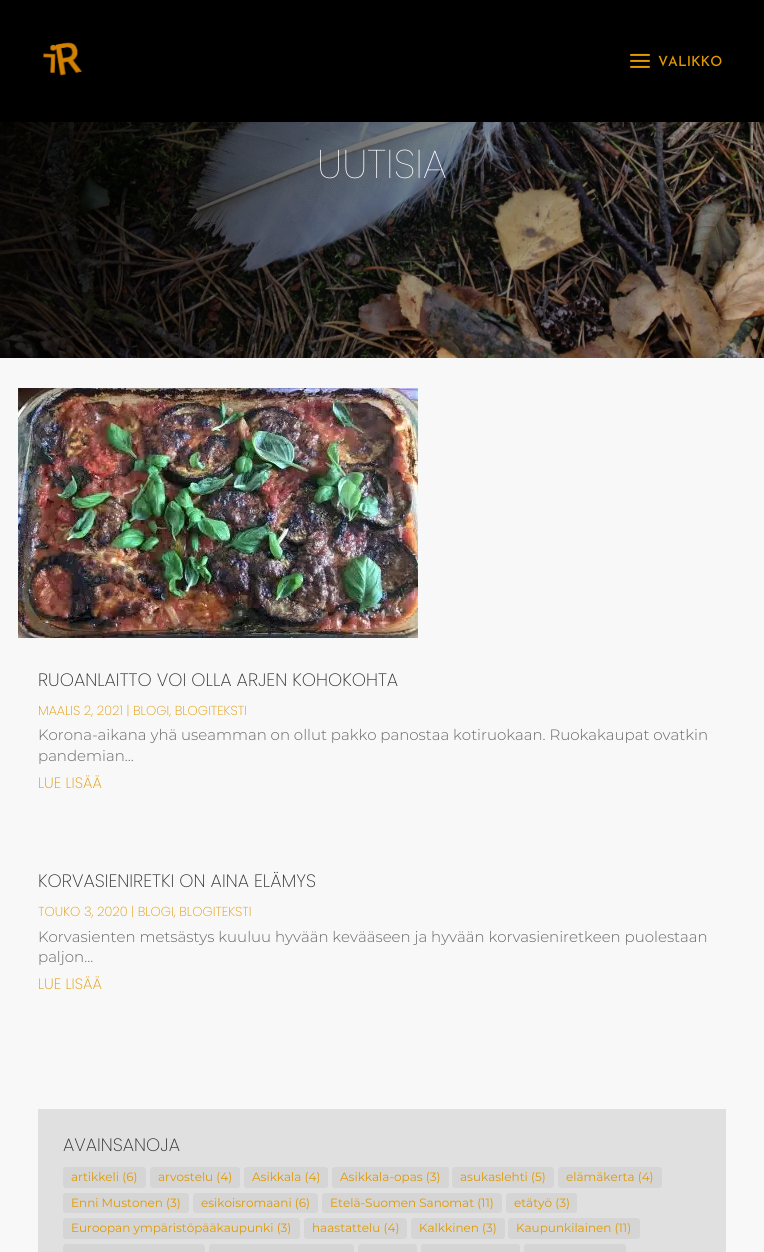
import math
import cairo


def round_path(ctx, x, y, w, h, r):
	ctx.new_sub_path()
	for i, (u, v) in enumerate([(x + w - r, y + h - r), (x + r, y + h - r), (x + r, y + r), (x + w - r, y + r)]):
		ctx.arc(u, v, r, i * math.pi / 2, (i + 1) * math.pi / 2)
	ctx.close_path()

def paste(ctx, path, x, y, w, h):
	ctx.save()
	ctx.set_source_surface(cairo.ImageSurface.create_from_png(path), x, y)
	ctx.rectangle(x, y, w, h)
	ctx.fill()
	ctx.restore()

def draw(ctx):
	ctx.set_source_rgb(0.969, 0.969, 0.969)
	ctx.paint()
	ctx.set_source_rgb(0, 0, 0)
	ctx.rectangle(0, 0, 764, 122)
	ctx.fill()
	paste(ctx, 'media/1.png', 43, 42, 40, 34)
	paste(ctx, 'media/2.png', 630, 53, 20, 15)
	ctx.select_font_face('Josefin Sans Medium')
	ctx.set_font_size(14)
	ctx.set_source_rgb(0.878, 0.6, 0)
	ctx.move_to(658, 66)
	ctx.show_text('VALIKKO')
	paste(ctx, 'media/3.png', 0, 122, 764, 236)
	ctx.select_font_face('Poppins Thin')
	ctx.set_font_size(40)
	ctx.set_source_rgb(1, 1, 1)
	ctx.move_to(317, 178)
	ctx.show_text('UUTISIA')
	paste(ctx, 'media/4.png', 18, 388, 400, 250)
	ctx.select_font_face('Poppins ExtraLight')
	ctx.set_font_size(18)
	ctx.set_source_rgb(0.2, 0.2, 0.2)
	ctx.move_to(38, 686)
	ctx.show_text('RUOANLAITTO VOI OLLA ARJEN KOHOKOHTA')
	ctx.set_font_size(13)
	ctx.set_source_rgb(0.878, 0.6, 0)
	ctx.move_to(38, 715)
	ctx.show_text('MAALIS 2, 2021 | BLOGI, BLOGITEKSTI')
	ctx.select_font_face('Montserrat Light')
	ctx.set_font_size(15)
	ctx.set_source_rgb(0.4, 0.4, 0.4)
	ctx.move_to(38, 740)
	ctx.show_text('Korona-aikana yhä useamman on ollut pakko panostaa kotiruokaan. Ruokakaupat ovatkin')
	ctx.move_to(38, 761)
	ctx.show_text('pandemian...')
	ctx.select_font_face('Poppins ExtraLight')
	ctx.set_source_rgb(0.878, 0.6, 0)
	ctx.move_to(38, 788)
	ctx.show_text('LUE LISÄÄ')
	ctx.set_font_size(18)
	ctx.set_source_rgb(0.2, 0.2, 0.2)
	ctx.move_to(38, 887)
	ctx.show_text('KORVASIENIRETKI ON AINA ELÄMYS')
	ctx.set_font_size(13)
	ctx.set_source_rgb(0.878, 0.6, 0)
	ctx.move_to(38, 916)
	ctx.show_text('TOUKO 3, 2020 | BLOGI, BLOGITEKSTI')
	ctx.select_font_face('Montserrat Light')
	ctx.set_font_size(15)
	ctx.set_source_rgb(0.4, 0.4, 0.4)
	ctx.move_to(38, 942)
	ctx.show_text('Korvasienten metsästys kuuluu hyvään kevääseen ja hyvään korvasieniretkeen puolestaan')
	ctx.move_to(38, 962)
	ctx.show_text('paljon...')
	ctx.select_font_face('Poppins ExtraLight')
	ctx.set_source_rgb(0.878, 0.6, 0)
	ctx.move_to(38, 989)
	ctx.show_text('LUE LISÄÄ')
	ctx.set_source_rgb(0.878, 0.878, 0.878)
	ctx.rectangle(38, 1109, 688, 143)
	ctx.fill()
	ctx.set_font_size(18)
	ctx.set_source_rgb(0.2, 0.2, 0.2)
	ctx.move_to(63, 1151)
	ctx.show_text('AVAINSANOJA')
	ctx.set_source_rgb(0.835, 0.835, 0.835)
	round_path(ctx, 63, 1167, 83, 21, 3)
	ctx.fill()
	ctx.select_font_face('Montserrat')
	ctx.set_font_size(12)
	ctx.set_source_rgb(0.878, 0.6, 0)
	ctx.move_to(71, 1181)
	ctx.show_text('artikkeli (6)')
	ctx.set_source_rgb(0.835, 0.835, 0.835)
	round_path(ctx, 150, 1167, 90, 21, 3)
	ctx.fill()
	ctx.set_source_rgb(0.878, 0.6, 0)
	ctx.move_to(158, 1181)
	ctx.show_text('arvostelu (4)')
	ctx.set_source_rgb(0.835, 0.835, 0.835)
	round_path(ctx, 244, 1167, 84, 21, 3)
	ctx.fill()
	ctx.set_source_rgb(0.878, 0.6, 0)
	ctx.move_to(252, 1181)
	ctx.show_text('Asikkala (4)')
	ctx.set_source_rgb(0.835, 0.835, 0.835)
	round_path(ctx, 332, 1167, 117, 21, 3)
	ctx.fill()
	ctx.set_source_rgb(0.878, 0.6, 0)
	ctx.move_to(340, 1181)
	ctx.show_text('Asikkala-opas (3)')
	ctx.set_source_rgb(0.835, 0.835, 0.835)
	round_path(ctx, 452, 1167, 102, 21, 3)
	ctx.fill()
	ctx.set_source_rgb(0.878, 0.6, 0)
	ctx.move_to(460, 1181)
	ctx.show_text('asukaslehti (5)')
	ctx.set_source_rgb(0.835, 0.835, 0.835)
	round_path(ctx, 558, 1167, 104, 21, 3)
	ctx.fill()
	ctx.set_source_rgb(0.878, 0.6, 0)
	ctx.move_to(566, 1181)
	ctx.show_text('elämäkerta (4)')
	ctx.set_source_rgb(0.835, 0.835, 0.835)
	round_path(ctx, 63, 1193, 126, 20, 3)
	ctx.fill()
	ctx.set_source_rgb(0.878, 0.6, 0)
	ctx.move_to(71, 1207)
	ctx.show_text('Enni Mustonen (3)')
	ctx.set_source_rgb(0.835, 0.835, 0.835)
	round_path(ctx, 193, 1193, 125, 20, 3)
	ctx.fill()
	ctx.set_source_rgb(0.878, 0.6, 0)
	ctx.move_to(201, 1207)
	ctx.show_text('esikoisromaani (6)')
	ctx.set_source_rgb(0.835, 0.835, 0.835)
	round_path(ctx, 322, 1193, 180, 20, 3)
	ctx.fill()
	ctx.set_source_rgb(0.878, 0.6, 0)
	ctx.move_to(330, 1207)
	ctx.show_text('Etelä-Suomen Sanomat (11)')
	ctx.set_source_rgb(0.835, 0.835, 0.835)
	round_path(ctx, 506, 1193, 71, 20, 3)
	ctx.fill()
	ctx.set_source_rgb(0.878, 0.6, 0)
	ctx.move_to(514, 1207)
	ctx.show_text('etätyö (3)')
	ctx.set_source_rgb(0.835, 0.835, 0.835)
	round_path(ctx, 63, 1218, 237, 21, 3)
	ctx.fill()
	ctx.set_source_rgb(0.878, 0.6, 0)
	ctx.move_to(71, 1232)
	ctx.show_text('Euroopan ympäristöpääkaupunki (3)')
	ctx.set_source_rgb(0.835, 0.835, 0.835)
	round_path(ctx, 304, 1218, 103, 21, 3)
	ctx.fill()
	ctx.set_source_rgb(0.878, 0.6, 0)
	ctx.move_to(312, 1232)
	ctx.show_text('haastattelu (4)')
	ctx.set_source_rgb(0.835, 0.835, 0.835)
	round_path(ctx, 411, 1218, 94, 21, 3)
	ctx.fill()
	ctx.set_source_rgb(0.878, 0.6, 0)
	ctx.move_to(419, 1232)
	ctx.show_text('Kalkkinen (3)')
	ctx.set_source_rgb(0.835, 0.835, 0.835)
	round_path(ctx, 508, 1218, 132, 21, 3)
	ctx.fill()
	ctx.set_source_rgb(0.878, 0.6, 0)
	ctx.move_to(516, 1232)
	ctx.show_text('Kaupunkilainen (11)')
	ctx.set_source_rgb(0.835, 0.835, 0.835)
	round_path(ctx, 63, 1244, 142, 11, 3)
	ctx.fill()
	round_path(ctx, 209, 1244, 145, 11, 3)
	ctx.fill()
	round_path(ctx, 358, 1244, 59, 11, 3)
	ctx.fill()
	round_path(ctx, 421, 1244, 99, 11, 3)
	ctx.fill()
	round_path(ctx, 524, 1244, 102, 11, 3)
	ctx.fill()


surface = cairo.ImageSurface(cairo.FORMAT_RGB24, 764, 1252)
ctx = cairo.Context(surface)
options = cairo.FontOptions()
options.set_hint_metrics(cairo.HINT_METRICS_OFF)
options.set_hint_style(cairo.HINT_STYLE_NONE)
ctx.set_font_options(options)
ctx.set_miter_limit(4)
draw(ctx)
surface.write_to_png('image.png')
